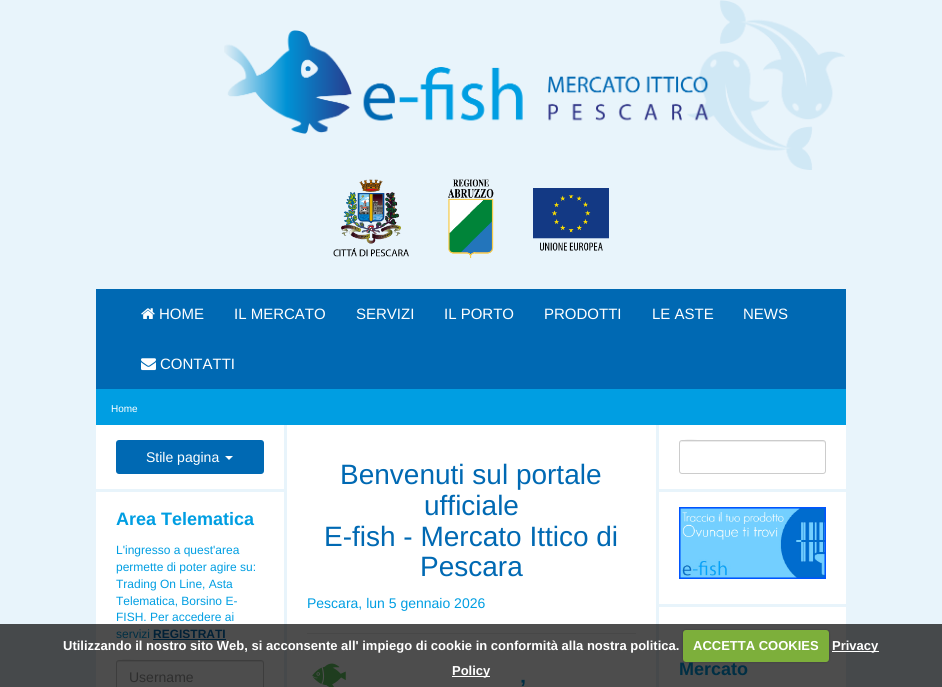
import math
import cairo


def round_path(ctx, x, y, w, h, r):
	ctx.new_sub_path()
	for i, (u, v) in enumerate([(x + w - r, y + h - r), (x + r, y + h - r), (x + r, y + r), (x + w - r, y + r)]):
		ctx.arc(u, v, r, i * math.pi / 2, (i + 1) * math.pi / 2)
	ctx.close_path()

def blur_box(ctx, x, y, w, h, r, blur, alpha):
	ctx.push_group_with_content(cairo.CONTENT_ALPHA)
	ctx.set_operator(cairo.OPERATOR_SOURCE)
	for i in range(15, -16, -2):
		e = blur * i / 6
		if min(w, h) + 2 * e > 0:
			ctx.set_source_rgba(0, 0, 0, alpha * math.erfc((i - 1) / 8.5) / 2)
			round_path(ctx, x - e, y - e, w + 2 * e, h + 2 * e, max(0, min(r + e + blur * .6, min(w, h) / 2 + e)))
			ctx.fill()
	ctx.mask(ctx.pop_group())

def paste(ctx, path, x, y, w, h):
	ctx.save()
	ctx.set_source_surface(cairo.ImageSurface.create_from_png(path), x, y)
	ctx.rectangle(x, y, w, h)
	ctx.fill()
	ctx.restore()

def draw(ctx):
	ctx.set_source_rgb(0.91, 0.957, 0.984)
	ctx.paint()
	ctx.set_source_rgb(0.275, 0.286, 0.294)
	ctx.rectangle(0, 624, 942, 63)
	ctx.fill()
	paste(ctx, 'media/1.png', 687, 0, 158, 170)
	paste(ctx, 'media/2.png', 224, 30, 485, 104)
	paste(ctx, 'media/3.png', 333, 179, 76, 78)
	paste(ctx, 'media/4.png', 448, 179, 46, 80)
	paste(ctx, 'media/5.png', 533, 188, 76, 63)
	ctx.set_source_rgb(0, 0.412, 0.702)
	ctx.rectangle(96, 289, 750, 100)
	ctx.fill()
	paste(ctx, 'media/6.png', 141, 308, 14, 11)
	ctx.select_font_face('Liberation Sans')
	ctx.set_font_size(15)
	ctx.set_source_rgb(1, 1, 1)
	for x, y, s in [
		(159, 319, 'HOME'),
		(234, 319, 'IL MERCATO'),
		(356, 319, 'SERVIZI'),
		(444, 319, 'IL PORTO'),
		(544, 319, 'PRODOTTI'),
		(652, 319, 'LE ASTE'),
		(743, 319, 'NEWS'),
	]:
		ctx.move_to(x, y)
		ctx.show_text(s)
	paste(ctx, 'media/7.png', 141, 358, 15, 13)
	ctx.move_to(160, 369)
	ctx.show_text('CONTATTI')
	ctx.set_source_rgb(0, 0.62, 0.886)
	ctx.rectangle(96, 389, 750, 36)
	ctx.fill()
	ctx.set_font_size(10)
	ctx.set_source_rgb(1, 1, 1)
	ctx.move_to(111, 412)
	ctx.show_text('Home')
	ctx.rectangle(96, 425, 188, 199)
	ctx.fill()
	ctx.set_source_rgb(0.302, 0.302, 0.302)
	ctx.rectangle(96, 624, 188, 63)
	ctx.fill()
	ctx.set_source_rgb(0.91, 0.957, 0.984)
	ctx.rectangle(96, 489, 188, 3)
	ctx.fill()
	ctx.set_source_rgb(0, 0.412, 0.702)
	round_path(ctx, 116, 440, 148, 34, 3)
	ctx.fill()
	ctx.set_font_size(14)
	ctx.set_source_rgb(1, 1, 1)
	ctx.move_to(146, 462)
	ctx.show_text('Stile pagina')
	ctx.new_path()
	ctx.move_to(225, 456)
	ctx.line_to(233, 456)
	ctx.line_to(229, 460)
	ctx.close_path()
	ctx.fill()
	ctx.select_font_face('Liberation Sans', cairo.FONT_SLANT_NORMAL, cairo.FONT_WEIGHT_BOLD)
	ctx.set_font_size(18)
	ctx.set_source_rgb(0, 0.62, 0.886)
	ctx.move_to(116, 525)
	ctx.show_text('Area Telematica')
	ctx.select_font_face('Liberation Sans')
	ctx.set_font_size(12)
	for x, y, s in [
		(116, 554, 'L\'ingresso a quest\'area'),
		(116, 571, 'permette di poter agire su:'),
		(116, 588, 'Trading On Line, Asta'),
		(116, 605, 'Telematica, Borsino E-'),
		(116, 621, 'FISH. Per accedere ai'),
	]:
		ctx.move_to(x, y)
		ctx.show_text(s)
	ctx.set_source_rgb(0, 0.184, 0.267)
	ctx.move_to(116, 638)
	ctx.show_text('servizi')
	ctx.select_font_face('Liberation Sans', cairo.FONT_SLANT_NORMAL, cairo.FONT_WEIGHT_BOLD)
	ctx.set_source_rgb(0, 0.125, 0.212)
	ctx.move_to(153, 638)
	ctx.show_text('REGISTRATI')
	ctx.rectangle(153, 639, 73, 1)
	ctx.fill()
	ctx.set_source_rgb(0.278, 0.278, 0.278)
	ctx.new_path()
	ctx.move_to(119, 662)
	ctx.line_to(261, 662)
	ctx.curve_to(262, 662, 263, 663, 263, 664)
	ctx.curve_to(263, 663, 263, 662, 262, 661)
	ctx.line_to(143, 661)
	ctx.curve_to(139, 661, 117, 656, 117, 664)
	ctx.curve_to(117, 663, 118, 662, 119, 662)
	ctx.close_path()
	ctx.fill()
	round_path(ctx, 116.5, 660.5, 147, 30, 2.5)
	ctx.set_source_rgb(0.239, 0.239, 0.239)
	ctx.set_line_width(1)
	ctx.stroke()
	ctx.select_font_face('Liberation Sans')
	ctx.set_font_size(14)
	ctx.set_source_rgb(0.18, 0.18, 0.18)
	ctx.move_to(129, 682)
	ctx.show_text('Username')
	ctx.set_source_rgb(1, 1, 1)
	ctx.rectangle(287, 425, 369, 199)
	ctx.fill()
	ctx.set_source_rgb(0.302, 0.302, 0.302)
	ctx.rectangle(287, 624, 369, 63)
	ctx.fill()
	ctx.set_font_size(28)
	ctx.set_source_rgb(0, 0.412, 0.702)
	for x, y, s in [
		(340, 484, 'Benvenuti sul portale'),
		(424, 515, 'ufficiale'),
		(324, 546, 'E-fish - Mercato Ittico di'),
		(420, 576, 'Pescara'),
	]:
		ctx.move_to(x, y)
		ctx.show_text(s)
	ctx.set_font_size(14)
	ctx.set_source_rgb(0, 0.62, 0.886)
	ctx.move_to(307, 608)
	ctx.show_text('Pescara, lun 5 gennaio 2026')
	ctx.set_source_rgb(0.278, 0.278, 0.278)
	ctx.rectangle(307, 633, 329, 1)
	ctx.fill()
	paste(ctx, 'media/8.png', 312, 663, 34, 24)
	ctx.select_font_face('Liberation Sans', cairo.FONT_SLANT_NORMAL, cairo.FONT_WEIGHT_BOLD)
	ctx.set_font_size(22)
	ctx.set_source_rgb(0, 0.184, 0.267)
	ctx.move_to(520, 695)
	ctx.show_text('’')
	ctx.set_source_rgb(1, 1, 1)
	ctx.rectangle(659, 425, 187, 199)
	ctx.fill()
	ctx.set_source_rgb(0.302, 0.302, 0.302)
	ctx.rectangle(659, 624, 187, 63)
	ctx.fill()
	ctx.set_source_rgb(0.91, 0.957, 0.984)
	ctx.rectangle(659, 489, 187, 3)
	ctx.fill()
	ctx.set_source_rgb(0.925, 0.925, 0.925)
	ctx.new_path()
	ctx.move_to(682, 442)
	ctx.line_to(823, 442)
	ctx.curve_to(824, 442, 825, 443, 825, 444)
	ctx.curve_to(825, 443, 825, 442, 824, 441)
	ctx.line_to(706, 441)
	ctx.curve_to(702, 441, 680, 436, 680, 444)
	ctx.curve_to(680, 443, 681, 442, 682, 442)
	ctx.close_path()
	ctx.fill()
	round_path(ctx, 679.5, 440.5, 146, 33, 2.5)
	ctx.set_source_rgb(0.8, 0.8, 0.8)
	ctx.stroke()
	ctx.set_source_rgb(0.91, 0.957, 0.984)
	ctx.rectangle(659, 604, 187, 3)
	ctx.fill()
	paste(ctx, 'media/9.png', 679, 507, 147, 72)
	ctx.set_font_size(18)
	ctx.set_source_rgb(0, 0.184, 0.267)
	ctx.move_to(679, 675)
	ctx.show_text('Mercato')
	ctx.set_font_size(13)
	ctx.set_source_rgb(1, 1, 1)
	ctx.move_to(63, 650)
	ctx.show_text('Utilizzando il nostro sito Web, si acconsente all\' impiego di cookie in conformità alla nostra politica.')
	ctx.set_source_rgb(0, 0, 0)
	blur_box(ctx, 683, 630, 146, 32, 3, 1, 0.25)
	ctx.set_source_rgb(0.49, 0.686, 0.231)
	round_path(ctx, 683, 630, 146, 32, 3)
	ctx.fill()
	ctx.set_source_rgb(1, 1, 1)
	ctx.move_to(693, 650)
	ctx.show_text('ACCETTA COOKIES')
	ctx.rectangle(832, 651, 47, 1)
	ctx.fill()
	ctx.move_to(832, 650)
	ctx.show_text('Privacy')
	ctx.rectangle(452, 676, 38, 1)
	ctx.fill()
	ctx.move_to(452, 675)
	ctx.show_text('Policy')


surface = cairo.ImageSurface(cairo.FORMAT_RGB24, 942, 687)
ctx = cairo.Context(surface)
options = cairo.FontOptions()
options.set_hint_metrics(cairo.HINT_METRICS_OFF)
options.set_hint_style(cairo.HINT_STYLE_NONE)
ctx.set_font_options(options)
ctx.set_miter_limit(4)
draw(ctx)
surface.write_to_png('image.png')
